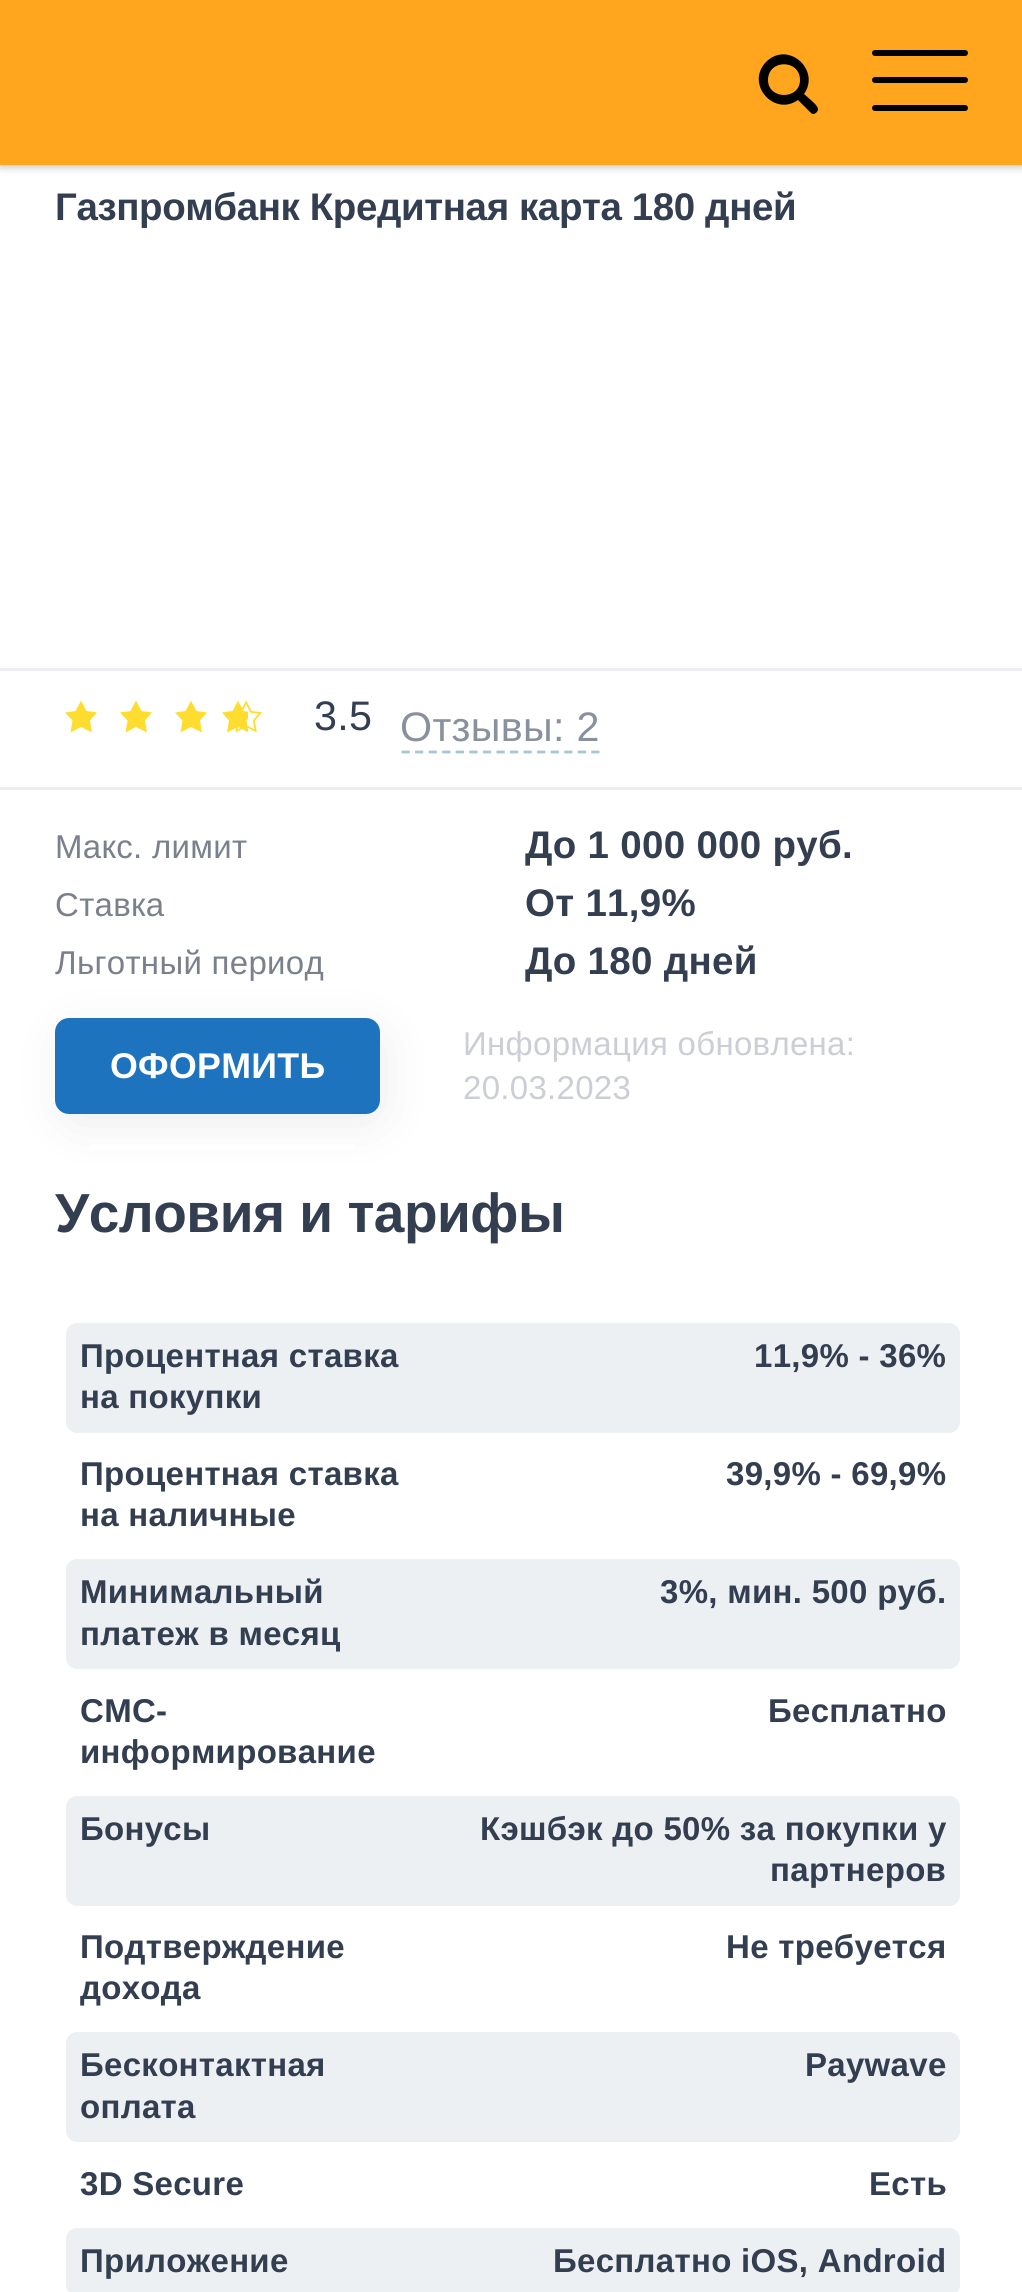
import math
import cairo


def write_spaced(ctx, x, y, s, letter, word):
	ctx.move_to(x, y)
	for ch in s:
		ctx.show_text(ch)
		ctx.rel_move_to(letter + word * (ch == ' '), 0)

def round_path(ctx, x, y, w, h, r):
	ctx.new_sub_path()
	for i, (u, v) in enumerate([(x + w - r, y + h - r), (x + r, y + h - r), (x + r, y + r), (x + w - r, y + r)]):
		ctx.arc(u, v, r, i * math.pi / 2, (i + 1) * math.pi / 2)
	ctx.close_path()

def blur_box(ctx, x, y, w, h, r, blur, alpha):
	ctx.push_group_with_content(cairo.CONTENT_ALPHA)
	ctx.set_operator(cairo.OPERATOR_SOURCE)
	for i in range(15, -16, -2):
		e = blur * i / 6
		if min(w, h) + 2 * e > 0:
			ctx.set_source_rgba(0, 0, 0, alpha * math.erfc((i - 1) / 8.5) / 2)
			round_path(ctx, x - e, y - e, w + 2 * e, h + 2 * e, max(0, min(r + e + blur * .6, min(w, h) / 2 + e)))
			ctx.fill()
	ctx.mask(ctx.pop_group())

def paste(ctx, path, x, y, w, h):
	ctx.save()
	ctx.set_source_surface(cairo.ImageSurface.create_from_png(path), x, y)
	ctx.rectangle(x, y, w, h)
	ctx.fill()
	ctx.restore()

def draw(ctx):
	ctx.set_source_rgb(1, 1, 1)
	ctx.paint()
	ctx.set_source_rgb(0, 0, 0)
	blur_box(ctx, 0, 3, 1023, 165, 0, 4, 0.2)
	ctx.set_source_rgb(1, 0.651, 0.118)
	ctx.rectangle(0, 0, 1022, 165)
	ctx.fill()
	ctx.set_source_rgb(0, 0, 0)
	ctx.new_path()
	ctx.move_to(800, 80)
	ctx.curve_to(800, 100, 768, 100, 768, 80)
	ctx.curve_to(768, 59, 800, 59, 800, 80)
	ctx.close_path()
	ctx.move_to(818, 109)
	ctx.curve_to(818, 105, 807, 97, 804, 94)
	ctx.curve_to(821, 70, 788, 40, 766, 62)
	ctx.curve_to(745, 84, 774, 117, 798, 100)
	ctx.line_to(810, 112)
	ctx.curve_to(811, 113, 812, 114, 813, 114)
	ctx.curve_to(816, 114, 818, 111, 818, 109)
	ctx.close_path()
	ctx.fill()
	round_path(ctx, 872, 77, 96, 6, 3)
	ctx.fill()
	round_path(ctx, 872, 50, 96, 6, 3)
	ctx.fill()
	round_path(ctx, 872, 105, 96, 6, 3)
	ctx.fill()
	ctx.select_font_face('Liberation Sans', cairo.FONT_SLANT_NORMAL, cairo.FONT_WEIGHT_BOLD)
	ctx.set_font_size(38.5)
	ctx.set_source_rgb(0.2, 0.243, 0.318)
	write_spaced(ctx, 55, 220, 'Газпромбанк Кредитная карта 180 дней', -0.4, 0)
	ctx.set_source_rgb(0.925, 0.933, 0.949)
	ctx.rectangle(0, 668, 1022, 3)
	ctx.fill()
	ctx.rectangle(0, 787, 1022, 3)
	ctx.fill()
	ctx.set_source_rgb(0.996, 0.867, 0.18)
	ctx.new_path()
	ctx.move_to(81, 700.5)
	ctx.line_to(86.5, 711)
	ctx.line_to(97, 712.5)
	ctx.line_to(90, 720.5)
	ctx.line_to(92, 732.5)
	ctx.line_to(81, 727)
	ctx.line_to(70.5, 732.5)
	ctx.line_to(72.5, 720.5)
	ctx.line_to(65, 712.5)
	ctx.line_to(75.5, 711)
	ctx.close_path()
	ctx.fill()
	ctx.new_path()
	ctx.move_to(136, 700.5)
	ctx.line_to(141.5, 711)
	ctx.line_to(152, 712.5)
	ctx.line_to(145, 720.5)
	ctx.line_to(147, 732.5)
	ctx.line_to(136, 727)
	ctx.line_to(125.5, 732.5)
	ctx.line_to(127.5, 720.5)
	ctx.line_to(120, 712.5)
	ctx.line_to(130.5, 711)
	ctx.close_path()
	ctx.fill()
	ctx.new_path()
	ctx.move_to(191, 700.5)
	ctx.line_to(196.5, 711)
	ctx.line_to(207, 712.5)
	ctx.line_to(200, 720.5)
	ctx.line_to(202, 732.5)
	ctx.line_to(191, 727)
	ctx.line_to(180.5, 732.5)
	ctx.line_to(182.5, 720.5)
	ctx.line_to(175, 712.5)
	ctx.line_to(185.5, 711)
	ctx.close_path()
	ctx.fill()
	ctx.save()
	ctx.rectangle(220, 699, 28, 35)
	ctx.clip()
	ctx.new_path()
	ctx.move_to(238, 700.5)
	ctx.line_to(243.5, 711)
	ctx.line_to(254, 712.5)
	ctx.line_to(246.5, 720.5)
	ctx.line_to(248.5, 732.5)
	ctx.line_to(238, 727)
	ctx.line_to(227, 732.5)
	ctx.line_to(229, 720.5)
	ctx.line_to(222, 712.5)
	ctx.line_to(232.5, 711)
	ctx.close_path()
	ctx.fill()
	ctx.restore()
	paste(ctx, 'media/1.png', 235, 700, 27, 33)
	ctx.select_font_face('Liberation Sans')
	ctx.set_font_size(41.25)
	ctx.set_source_rgb(0.2, 0.243, 0.318)
	write_spaced(ctx, 314, 730, '3.5', 0.3, 0)
	ctx.set_source_rgb(0.533, 0.569, 0.616)
	write_spaced(ctx, 400, 741, 'Отзывы: 2', 0.3, 0)
	ctx.new_path()
	ctx.move_to(401.5, 752)
	ctx.line_to(599.5, 752)
	ctx.set_source_rgb(0.663, 0.776, 0.835)
	ctx.set_line_width(2.8)
	ctx.set_dash([8.25, 5.31])
	ctx.stroke()
	ctx.set_font_size(33)
	ctx.set_source_rgb(0.482, 0.506, 0.549)
	write_spaced(ctx, 55, 858, 'Макс. лимит', 0.3, 0)
	ctx.select_font_face('Liberation Sans', cairo.FONT_SLANT_NORMAL, cairo.FONT_WEIGHT_BOLD)
	ctx.set_font_size(38.5)
	ctx.set_source_rgb(0.2, 0.243, 0.318)
	write_spaced(ctx, 525, 858, 'До 1 000 000 руб.', 0.3, 0)
	ctx.select_font_face('Liberation Sans')
	ctx.set_font_size(33)
	ctx.set_source_rgb(0.482, 0.506, 0.549)
	write_spaced(ctx, 55, 916, 'Ставка', 0.3, 0)
	ctx.select_font_face('Liberation Sans', cairo.FONT_SLANT_NORMAL, cairo.FONT_WEIGHT_BOLD)
	ctx.set_font_size(38.5)
	ctx.set_source_rgb(0.2, 0.243, 0.318)
	write_spaced(ctx, 525, 916, 'От 11,9%', 0.3, 0)
	ctx.select_font_face('Liberation Sans')
	ctx.set_font_size(33)
	ctx.set_source_rgb(0.482, 0.506, 0.549)
	write_spaced(ctx, 55, 974, 'Льготный период', 0.3, 0)
	ctx.select_font_face('Liberation Sans', cairo.FONT_SLANT_NORMAL, cairo.FONT_WEIGHT_BOLD)
	ctx.set_font_size(38.5)
	ctx.set_source_rgb(0.2, 0.243, 0.318)
	write_spaced(ctx, 525, 974, 'До 180 дней', 0.3, 0)
	ctx.set_source_rgb(0, 0, 0)
	blur_box(ctx, 72, 1040, 302, 74, 3, 27.5, 0.1)
	ctx.set_source_rgb(0.118, 0.451, 0.745)
	round_path(ctx, 55, 1018, 325, 96, 14)
	ctx.fill()
	ctx.set_font_size(35.75)
	ctx.set_source_rgb(1, 1, 1)
	write_spaced(ctx, 110, 1078, 'ОФОРМИТЬ', 0.3, 0)
	ctx.select_font_face('Liberation Sans')
	ctx.set_font_size(33)
	ctx.set_source_rgb(0.796, 0.808, 0.835)
	write_spaced(ctx, 463, 1055, 'Информация обновлена:', 0.3, 0)
	write_spaced(ctx, 463, 1099, '20.03.2023', 0.3, 0)
	ctx.set_source_rgb(1, 1, 1)
	ctx.rectangle(91, 1144, 264, 5)
	ctx.fill()
	ctx.select_font_face('Liberation Sans', cairo.FONT_SLANT_NORMAL, cairo.FONT_WEIGHT_BOLD)
	ctx.set_font_size(55)
	ctx.set_source_rgb(0.2, 0.243, 0.318)
	write_spaced(ctx, 55, 1232, 'Условия и тарифы', -0.5, 0)
	ctx.set_source_rgb(0.922, 0.941, 0.953)
	round_path(ctx, 66, 1323, 894, 110, 11)
	ctx.fill()
	ctx.set_font_size(33)
	ctx.set_source_rgb(0.2, 0.243, 0.318)
	for x, y, s in [
		(80, 1367, 'Процентная ставка'),
		(80, 1408, 'на покупки'),
		(754, 1367, '11,9% - 36%'),
		(80, 1485, 'Процентная ставка'),
		(80, 1526, 'на наличные'),
		(726, 1485, '39,9% - 69,9%'),
	]:
		write_spaced(ctx, x, y, s, 0.3, 0)
	ctx.set_source_rgb(0.922, 0.941, 0.953)
	round_path(ctx, 66, 1559, 894, 110, 11)
	ctx.fill()
	ctx.set_source_rgb(0.2, 0.243, 0.318)
	for x, y, s in [
		(80, 1603, 'Минимальный'),
		(80, 1645, 'платеж в месяц'),
		(660, 1603, '3%, мин. 500 руб.'),
		(80, 1722, 'СМС-'),
		(80, 1763, 'информирование'),
		(768, 1722, 'Бесплатно'),
	]:
		write_spaced(ctx, x, y, s, 0.3, 0)
	ctx.set_source_rgb(0.922, 0.941, 0.953)
	round_path(ctx, 66, 1796, 894, 110, 11)
	ctx.fill()
	ctx.set_source_rgb(0.2, 0.243, 0.318)
	for x, y, s in [
		(80, 1840, 'Бонусы'),
		(480, 1840, 'Кэшбэк до 50% за покупки у'),
		(770, 1881, 'партнеров'),
		(80, 1958, 'Подтверждение'),
		(80, 1999, 'дохода'),
		(726, 1958, 'Не требуется'),
	]:
		write_spaced(ctx, x, y, s, 0.3, 0)
	ctx.set_source_rgb(0.922, 0.941, 0.953)
	round_path(ctx, 66, 2032, 894, 110, 11)
	ctx.fill()
	ctx.set_source_rgb(0.2, 0.243, 0.318)
	for x, y, s in [
		(80, 2076, 'Бесконтактная'),
		(80, 2118, 'оплата'),
		(805, 2076, 'Paywave'),
		(80, 2195, '3D Secure'),
		(869, 2195, 'Есть'),
	]:
		write_spaced(ctx, x, y, s, 0.3, 0)
	ctx.set_source_rgb(0.922, 0.941, 0.953)
	round_path(ctx, 66, 2228, 894, 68, 11)
	ctx.fill()
	ctx.set_source_rgb(0.2, 0.243, 0.318)
	write_spaced(ctx, 80, 2272, 'Приложение', 0.3, 0)
	write_spaced(ctx, 553, 2272, 'Бесплатно iOS, Android', 0.3, 0)


surface = cairo.ImageSurface(cairo.FORMAT_RGB24, 1022, 2292)
ctx = cairo.Context(surface)
options = cairo.FontOptions()
options.set_hint_metrics(cairo.HINT_METRICS_OFF)
options.set_hint_style(cairo.HINT_STYLE_NONE)
ctx.set_font_options(options)
ctx.set_miter_limit(4)
draw(ctx)
surface.write_to_png('image.png')
